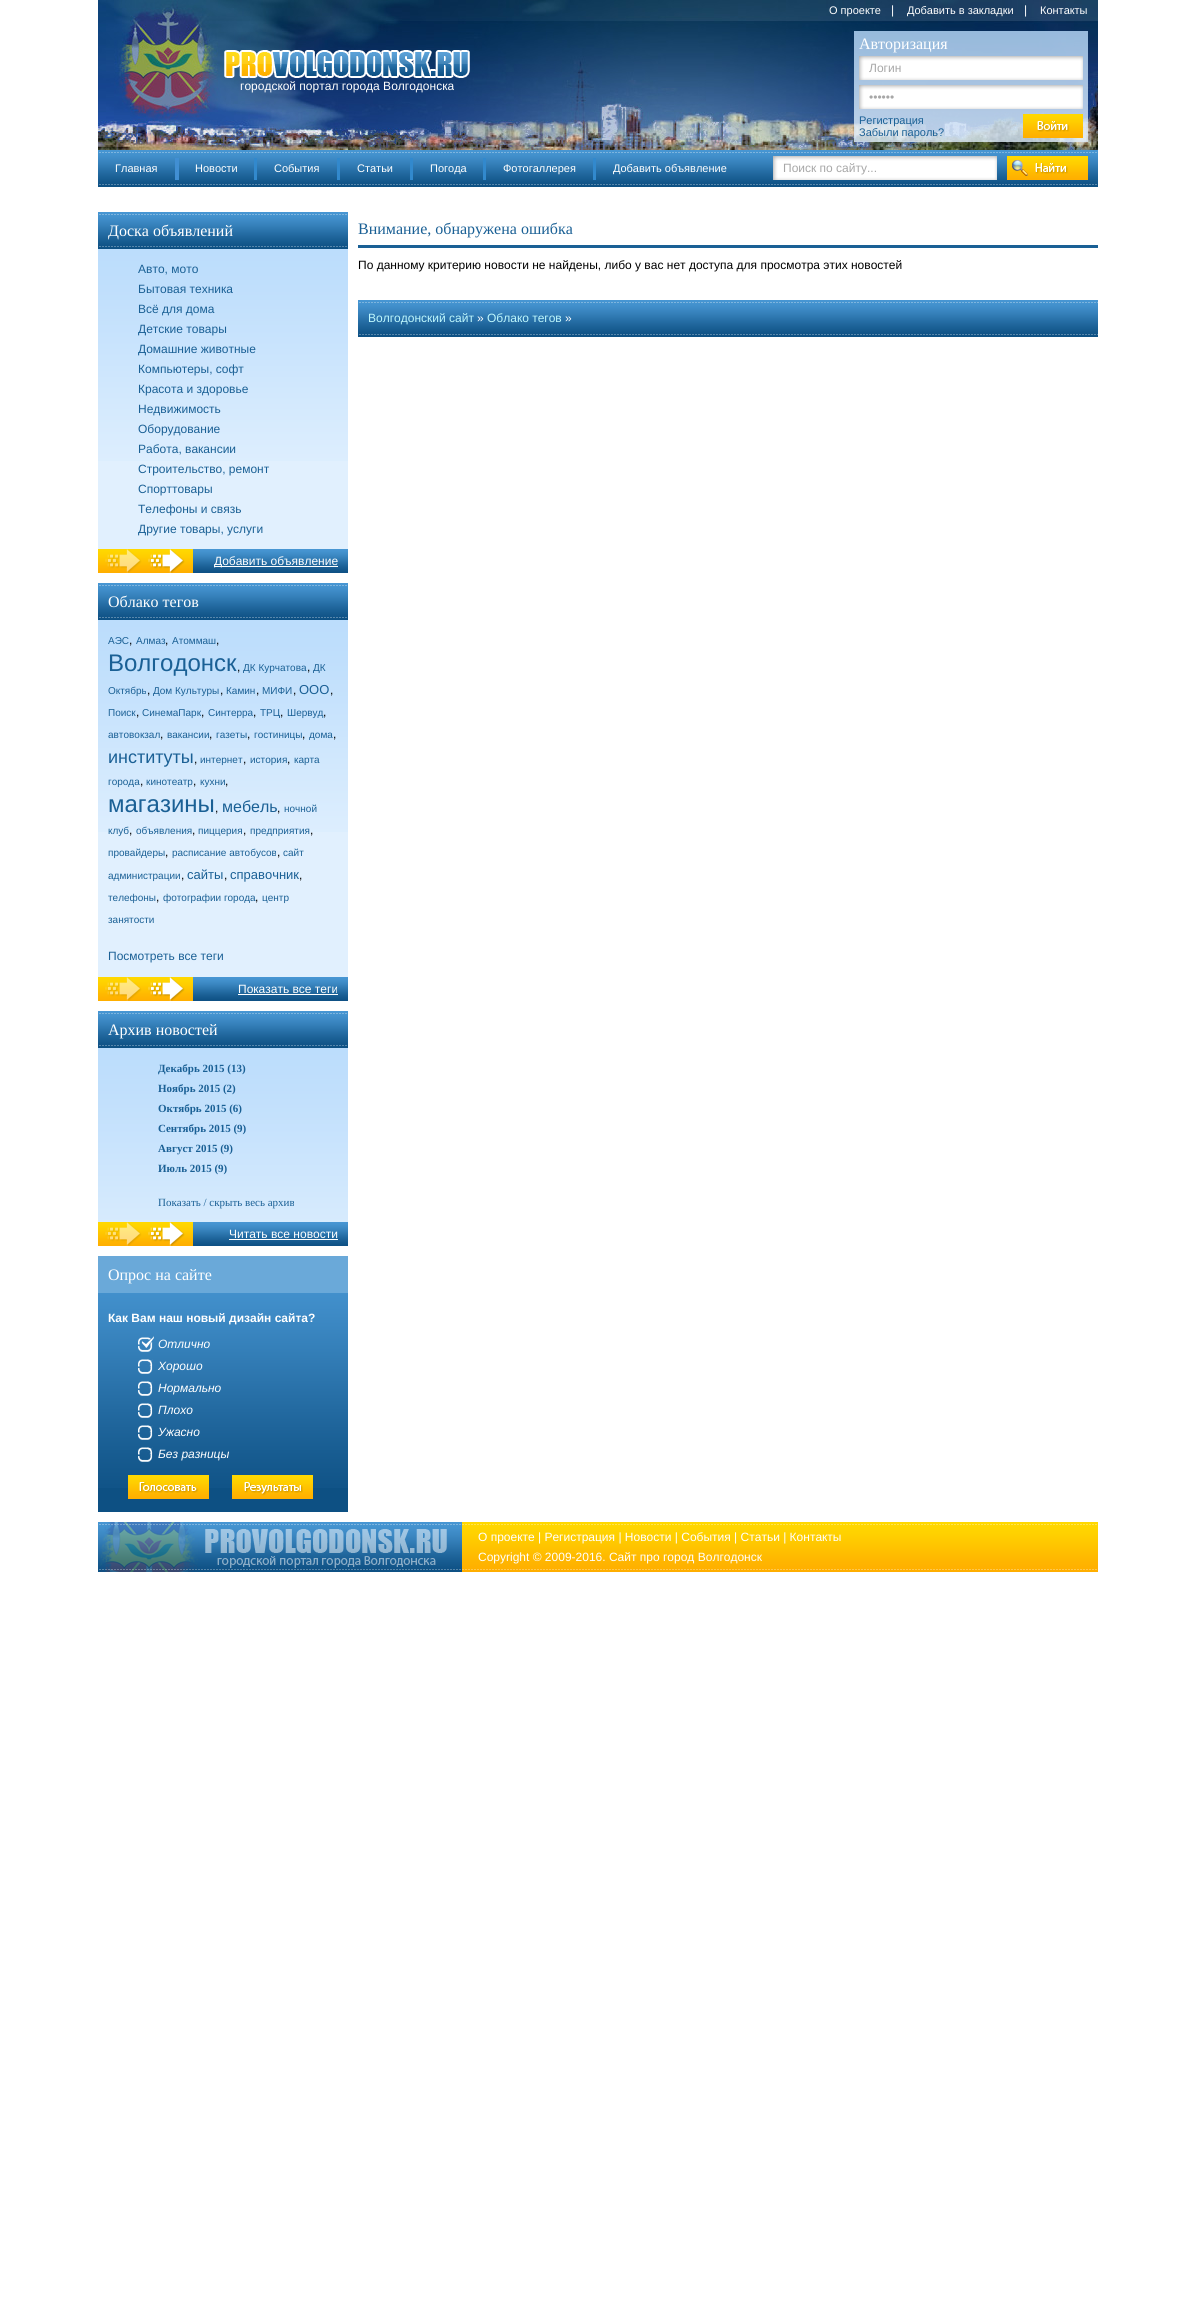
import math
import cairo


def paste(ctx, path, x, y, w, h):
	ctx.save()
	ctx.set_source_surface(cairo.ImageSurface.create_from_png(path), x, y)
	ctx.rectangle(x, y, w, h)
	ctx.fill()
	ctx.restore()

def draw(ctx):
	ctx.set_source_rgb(1, 1, 1)
	ctx.paint()
	paste(ctx, 'media/1.png', 98, 0, 1000, 150)
	ctx.select_font_face('Liberation Sans')
	ctx.set_font_size(11)
	ctx.set_source_rgb(1, 1, 1)
	ctx.move_to(829, 14)
	ctx.show_text('О проекте')
	ctx.set_font_size(12)
	ctx.move_to(891, 14)
	ctx.show_text('|')
	ctx.set_font_size(11)
	ctx.move_to(907, 14)
	ctx.show_text('Добавить в закладки')
	ctx.set_font_size(12)
	ctx.move_to(1024, 14)
	ctx.show_text('|')
	ctx.set_font_size(11)
	ctx.move_to(1040, 14)
	ctx.show_text('Контакты')
	paste(ctx, 'media/2.png', 224, 50, 246, 28)
	ctx.set_font_size(12)
	ctx.move_to(240, 90)
	ctx.show_text('городской портал города Волгодонска')
	paste(ctx, 'media/3.png', 854, 31, 234, 111)
	ctx.select_font_face('Liberation Serif')
	ctx.set_font_size(16)
	ctx.move_to(859, 49)
	ctx.show_text('Авторизация')
	paste(ctx, 'media/4.png', 859, 56, 224, 24)
	ctx.select_font_face('Liberation Sans')
	ctx.set_font_size(12)
	ctx.set_source_rgb(0.655, 0.655, 0.655)
	ctx.move_to(869, 72)
	ctx.show_text('Логин')
	paste(ctx, 'media/4.png', 859, 85, 224, 24)
	ctx.move_to(869, 101)
	ctx.show_text('••••••')
	ctx.set_font_size(11)
	ctx.set_source_rgb(0.102, 0.376, 0.584)
	ctx.move_to(859, 124)
	ctx.show_text('Регистрация')
	ctx.move_to(859, 136)
	ctx.show_text('Забыли пароль?')
	paste(ctx, 'media/5.png', 1023, 114, 60, 24)
	paste(ctx, 'media/6.png', 98, 150, 1000, 37)
	ctx.set_source_rgb(1, 1, 1)
	ctx.move_to(115, 172)
	ctx.show_text('Главная')
	ctx.set_source_rgb(0.255, 0.561, 0.827)
	ctx.rectangle(175, 158, 4, 22)
	ctx.fill()
	ctx.set_source_rgb(1, 1, 1)
	ctx.move_to(195, 172)
	ctx.show_text('Новости')
	ctx.set_source_rgb(0.196, 0.537, 0.804)
	ctx.rectangle(254, 158, 3, 22)
	ctx.fill()
	ctx.set_source_rgb(1, 1, 1)
	ctx.move_to(274, 172)
	ctx.show_text('События')
	ctx.set_source_rgb(0.196, 0.537, 0.804)
	ctx.rectangle(337, 158, 3, 22)
	ctx.fill()
	ctx.set_source_rgb(1, 1, 1)
	ctx.move_to(357, 172)
	ctx.show_text('Статьи')
	ctx.set_source_rgb(0.196, 0.537, 0.804)
	ctx.rectangle(410, 158, 3, 22)
	ctx.fill()
	ctx.set_source_rgb(1, 1, 1)
	ctx.move_to(430, 172)
	ctx.show_text('Погода')
	ctx.set_source_rgb(0.196, 0.537, 0.804)
	ctx.rectangle(483, 158, 3, 22)
	ctx.fill()
	ctx.set_source_rgb(1, 1, 1)
	ctx.move_to(503, 172)
	ctx.show_text('Фотогаллерея')
	ctx.set_source_rgb(0.196, 0.537, 0.804)
	ctx.rectangle(593, 158, 3, 22)
	ctx.fill()
	ctx.set_source_rgb(1, 1, 1)
	ctx.move_to(613, 172)
	ctx.show_text('Добавить объявление')
	paste(ctx, 'media/4.png', 773, 156, 224, 24)
	ctx.set_font_size(12)
	ctx.set_source_rgb(0.655, 0.655, 0.655)
	ctx.move_to(783, 172)
	ctx.show_text('Поиск по сайту...')
	paste(ctx, 'media/7.png', 1007, 156, 81, 24)
	paste(ctx, 'media/8.png', 98, 212, 250, 37)
	ctx.select_font_face('Liberation Serif')
	ctx.set_font_size(16)
	ctx.set_source_rgb(1, 1, 1)
	ctx.move_to(108, 236)
	ctx.show_text('Доска объявлений')
	ctx.set_source_rgb(0.882, 0.941, 0.996)
	ctx.rectangle(98, 461, 250, 88)
	ctx.fill()
	paste(ctx, 'media/9.png', 98, 249, 250, 212)
	ctx.select_font_face('Liberation Sans')
	ctx.set_font_size(12)
	ctx.set_source_rgb(0.102, 0.376, 0.584)
	for x, y, s in [
		(138, 273, 'Авто, мото'),
		(138, 293, 'Бытовая техника'),
		(138, 313, 'Всё для дома'),
		(138, 333, 'Детские товары'),
		(138, 353, 'Домашние животные'),
		(138, 373, 'Компьютеры, софт'),
		(138, 393, 'Красота и здоровье'),
		(138, 413, 'Недвижимость'),
		(138, 433, 'Оборудование'),
		(138, 453, 'Работа, вакансии'),
		(138, 473, 'Строительство, ремонт'),
		(138, 493, 'Спорттовары'),
		(138, 513, 'Телефоны и связь'),
		(138, 533, 'Другие товары, услуги'),
	]:
		ctx.move_to(x, y)
		ctx.show_text(s)
	paste(ctx, 'media/10.png', 98, 549, 250, 24)
	ctx.set_source_rgb(1, 1, 1)
	ctx.rectangle(214, 566, 124, 1)
	ctx.fill()
	ctx.move_to(214, 565)
	ctx.show_text('Добавить объявление')
	paste(ctx, 'media/8.png', 98, 583, 250, 37)
	ctx.select_font_face('Liberation Serif')
	ctx.set_font_size(16)
	ctx.move_to(108, 607)
	ctx.show_text('Облако тегов')
	ctx.set_source_rgb(0.882, 0.941, 0.996)
	ctx.rectangle(98, 832, 250, 145)
	ctx.fill()
	paste(ctx, 'media/9.png', 98, 620, 250, 212)
	ctx.select_font_face('Liberation Sans')
	ctx.set_font_size(10)
	ctx.set_source_rgb(0.102, 0.376, 0.584)
	ctx.move_to(108, 644)
	ctx.show_text('АЭС')
	ctx.set_font_size(12)
	ctx.set_source_rgb(0, 0, 0)
	ctx.move_to(129, 644)
	ctx.show_text(',')
	ctx.set_font_size(10)
	ctx.set_source_rgb(0.102, 0.376, 0.584)
	ctx.move_to(136, 644)
	ctx.show_text('Алмаз')
	ctx.set_font_size(12)
	ctx.set_source_rgb(0, 0, 0)
	ctx.move_to(165, 644)
	ctx.show_text(',')
	ctx.set_font_size(10)
	ctx.set_source_rgb(0.102, 0.376, 0.584)
	ctx.move_to(172, 644)
	ctx.show_text('Атоммаш')
	ctx.set_font_size(12)
	ctx.set_source_rgb(0, 0, 0)
	ctx.move_to(216, 644)
	ctx.show_text(',')
	ctx.set_font_size(24)
	ctx.set_source_rgb(0.102, 0.376, 0.584)
	ctx.move_to(108, 671)
	ctx.show_text('Волгодонск')
	ctx.set_font_size(12)
	ctx.set_source_rgb(0, 0, 0)
	ctx.move_to(237, 671)
	ctx.show_text(',')
	ctx.set_font_size(10)
	ctx.set_source_rgb(0.102, 0.376, 0.584)
	ctx.move_to(243, 671)
	ctx.show_text('ДК Курчатова')
	ctx.set_font_size(12)
	ctx.set_source_rgb(0, 0, 0)
	ctx.move_to(307, 671)
	ctx.show_text(',')
	ctx.set_font_size(10)
	ctx.set_source_rgb(0.102, 0.376, 0.584)
	ctx.move_to(313, 671)
	ctx.show_text('ДК')
	ctx.move_to(108, 694)
	ctx.show_text('Октябрь')
	ctx.set_font_size(12)
	ctx.set_source_rgb(0, 0, 0)
	ctx.move_to(147, 694)
	ctx.show_text(',')
	ctx.set_font_size(10)
	ctx.set_source_rgb(0.102, 0.376, 0.584)
	ctx.move_to(153, 694)
	ctx.show_text('Дом Культуры')
	ctx.set_font_size(12)
	ctx.set_source_rgb(0, 0, 0)
	ctx.move_to(220, 694)
	ctx.show_text(',')
	ctx.set_font_size(10)
	ctx.set_source_rgb(0.102, 0.376, 0.584)
	ctx.move_to(226, 694)
	ctx.show_text('Камин')
	ctx.set_font_size(12)
	ctx.set_source_rgb(0, 0, 0)
	ctx.move_to(256, 694)
	ctx.show_text(',')
	ctx.set_font_size(10)
	ctx.set_source_rgb(0.102, 0.376, 0.584)
	ctx.move_to(262, 694)
	ctx.show_text('МИФИ')
	ctx.set_font_size(12)
	ctx.set_source_rgb(0, 0, 0)
	ctx.move_to(293, 694)
	ctx.show_text(',')
	ctx.set_font_size(13)
	ctx.set_source_rgb(0.102, 0.376, 0.584)
	ctx.move_to(299, 694)
	ctx.show_text('ООО')
	ctx.set_font_size(12)
	ctx.set_source_rgb(0, 0, 0)
	ctx.move_to(330, 694)
	ctx.show_text(',')
	ctx.set_font_size(10)
	ctx.set_source_rgb(0.102, 0.376, 0.584)
	ctx.move_to(108, 716)
	ctx.show_text('Поиск')
	ctx.set_font_size(12)
	ctx.set_source_rgb(0, 0, 0)
	ctx.move_to(136, 716)
	ctx.show_text(',')
	ctx.set_font_size(10)
	ctx.set_source_rgb(0.102, 0.376, 0.584)
	ctx.move_to(142, 716)
	ctx.show_text('СинемаПарк')
	ctx.set_font_size(12)
	ctx.set_source_rgb(0, 0, 0)
	ctx.move_to(201, 716)
	ctx.show_text(',')
	ctx.set_font_size(10)
	ctx.set_source_rgb(0.102, 0.376, 0.584)
	ctx.move_to(208, 716)
	ctx.show_text('Синтерра')
	ctx.set_font_size(12)
	ctx.set_source_rgb(0, 0, 0)
	ctx.move_to(253, 716)
	ctx.show_text(',')
	ctx.set_font_size(10)
	ctx.set_source_rgb(0.102, 0.376, 0.584)
	ctx.move_to(260, 716)
	ctx.show_text('ТРЦ')
	ctx.set_font_size(12)
	ctx.set_source_rgb(0, 0, 0)
	ctx.move_to(280, 716)
	ctx.show_text(',')
	ctx.set_font_size(10)
	ctx.set_source_rgb(0.102, 0.376, 0.584)
	ctx.move_to(287, 716)
	ctx.show_text('Шервуд')
	ctx.set_font_size(12)
	ctx.set_source_rgb(0, 0, 0)
	ctx.move_to(323, 716)
	ctx.show_text(',')
	ctx.set_font_size(10)
	ctx.set_source_rgb(0.102, 0.376, 0.584)
	ctx.move_to(108, 738)
	ctx.show_text('автовокзал')
	ctx.set_font_size(12)
	ctx.set_source_rgb(0, 0, 0)
	ctx.move_to(160, 738)
	ctx.show_text(',')
	ctx.set_font_size(10)
	ctx.set_source_rgb(0.102, 0.376, 0.584)
	ctx.move_to(167, 738)
	ctx.show_text('вакансии')
	ctx.set_font_size(12)
	ctx.set_source_rgb(0, 0, 0)
	ctx.move_to(209, 738)
	ctx.show_text(',')
	ctx.set_font_size(10)
	ctx.set_source_rgb(0.102, 0.376, 0.584)
	ctx.move_to(216, 738)
	ctx.show_text('газеты')
	ctx.set_font_size(12)
	ctx.set_source_rgb(0, 0, 0)
	ctx.move_to(247, 738)
	ctx.show_text(',')
	ctx.set_font_size(10)
	ctx.set_source_rgb(0.102, 0.376, 0.584)
	ctx.move_to(254, 738)
	ctx.show_text('гостиницы')
	ctx.set_font_size(12)
	ctx.set_source_rgb(0, 0, 0)
	ctx.move_to(302, 738)
	ctx.show_text(',')
	ctx.set_font_size(10)
	ctx.set_source_rgb(0.102, 0.376, 0.584)
	ctx.move_to(309, 738)
	ctx.show_text('дома')
	ctx.set_font_size(12)
	ctx.set_source_rgb(0, 0, 0)
	ctx.move_to(333, 738)
	ctx.show_text(',')
	ctx.set_font_size(18)
	ctx.set_source_rgb(0.102, 0.376, 0.584)
	ctx.move_to(108, 763)
	ctx.show_text('институты')
	ctx.set_font_size(12)
	ctx.set_source_rgb(0, 0, 0)
	ctx.move_to(194, 763)
	ctx.show_text(',')
	ctx.set_font_size(10)
	ctx.set_source_rgb(0.102, 0.376, 0.584)
	ctx.move_to(200, 763)
	ctx.show_text('интернет')
	ctx.set_font_size(12)
	ctx.set_source_rgb(0, 0, 0)
	ctx.move_to(243, 763)
	ctx.show_text(',')
	ctx.set_font_size(10)
	ctx.set_source_rgb(0.102, 0.376, 0.584)
	ctx.move_to(250, 763)
	ctx.show_text('история')
	ctx.set_font_size(12)
	ctx.set_source_rgb(0, 0, 0)
	ctx.move_to(287, 763)
	ctx.show_text(',')
	ctx.set_font_size(10)
	ctx.set_source_rgb(0.102, 0.376, 0.584)
	ctx.move_to(294, 763)
	ctx.show_text('карта')
	ctx.move_to(108, 785)
	ctx.show_text('города')
	ctx.set_font_size(12)
	ctx.set_source_rgb(0, 0, 0)
	ctx.move_to(140, 785)
	ctx.show_text(',')
	ctx.set_font_size(10)
	ctx.set_source_rgb(0.102, 0.376, 0.584)
	ctx.move_to(146, 785)
	ctx.show_text('кинотеатр')
	ctx.set_font_size(12)
	ctx.set_source_rgb(0, 0, 0)
	ctx.move_to(193, 785)
	ctx.show_text(',')
	ctx.set_font_size(10)
	ctx.set_source_rgb(0.102, 0.376, 0.584)
	ctx.move_to(200, 785)
	ctx.show_text('кухни')
	ctx.set_font_size(12)
	ctx.set_source_rgb(0, 0, 0)
	ctx.move_to(225, 785)
	ctx.show_text(',')
	ctx.set_font_size(24)
	ctx.set_source_rgb(0.102, 0.376, 0.584)
	ctx.move_to(108, 812)
	ctx.show_text('магазины')
	ctx.set_font_size(12)
	ctx.set_source_rgb(0, 0, 0)
	ctx.move_to(215, 812)
	ctx.show_text(',')
	ctx.set_font_size(16)
	ctx.set_source_rgb(0.102, 0.376, 0.584)
	ctx.move_to(222, 812)
	ctx.show_text('мебель')
	ctx.set_font_size(12)
	ctx.set_source_rgb(0, 0, 0)
	ctx.move_to(277, 812)
	ctx.show_text(',')
	ctx.set_font_size(10)
	ctx.set_source_rgb(0.102, 0.376, 0.584)
	ctx.move_to(284, 812)
	ctx.show_text('ночной')
	ctx.move_to(108, 834)
	ctx.show_text('клуб')
	ctx.set_font_size(12)
	ctx.set_source_rgb(0, 0, 0)
	ctx.move_to(129, 834)
	ctx.show_text(',')
	ctx.set_font_size(10)
	ctx.set_source_rgb(0.102, 0.376, 0.584)
	ctx.move_to(136, 834)
	ctx.show_text('объявления')
	ctx.set_font_size(12)
	ctx.set_source_rgb(0, 0, 0)
	ctx.move_to(192, 834)
	ctx.show_text(',')
	ctx.set_font_size(10)
	ctx.set_source_rgb(0.102, 0.376, 0.584)
	ctx.move_to(198, 834)
	ctx.show_text('пиццерия')
	ctx.set_font_size(12)
	ctx.set_source_rgb(0, 0, 0)
	ctx.move_to(243, 834)
	ctx.show_text(',')
	ctx.set_font_size(10)
	ctx.set_source_rgb(0.102, 0.376, 0.584)
	ctx.move_to(250, 834)
	ctx.show_text('предприятия')
	ctx.set_font_size(12)
	ctx.set_source_rgb(0, 0, 0)
	ctx.move_to(310, 834)
	ctx.show_text(',')
	ctx.set_font_size(10)
	ctx.set_source_rgb(0.102, 0.376, 0.584)
	ctx.move_to(108, 856)
	ctx.show_text('провайдеры')
	ctx.set_font_size(12)
	ctx.set_source_rgb(0, 0, 0)
	ctx.move_to(165, 856)
	ctx.show_text(',')
	ctx.set_font_size(10)
	ctx.set_source_rgb(0.102, 0.376, 0.584)
	ctx.move_to(172, 856)
	ctx.show_text('расписание автобусов')
	ctx.set_font_size(12)
	ctx.set_source_rgb(0, 0, 0)
	ctx.move_to(277, 856)
	ctx.show_text(',')
	ctx.set_font_size(10)
	ctx.set_source_rgb(0.102, 0.376, 0.584)
	ctx.move_to(283, 856)
	ctx.show_text('сайт')
	ctx.move_to(108, 879)
	ctx.show_text('администрации')
	ctx.set_font_size(12)
	ctx.set_source_rgb(0, 0, 0)
	ctx.move_to(181, 879)
	ctx.show_text(',')
	ctx.set_font_size(13)
	ctx.set_source_rgb(0.102, 0.376, 0.584)
	ctx.move_to(187, 879)
	ctx.show_text('сайты')
	ctx.set_font_size(12)
	ctx.set_source_rgb(0, 0, 0)
	ctx.move_to(224, 879)
	ctx.show_text(',')
	ctx.set_font_size(13)
	ctx.set_source_rgb(0.102, 0.376, 0.584)
	ctx.move_to(230, 879)
	ctx.show_text('справочник')
	ctx.set_font_size(12)
	ctx.set_source_rgb(0, 0, 0)
	ctx.move_to(299, 879)
	ctx.show_text(',')
	ctx.set_font_size(10)
	ctx.set_source_rgb(0.102, 0.376, 0.584)
	ctx.move_to(108, 901)
	ctx.show_text('телефоны')
	ctx.set_font_size(12)
	ctx.set_source_rgb(0, 0, 0)
	ctx.move_to(156, 901)
	ctx.show_text(',')
	ctx.set_font_size(10)
	ctx.set_source_rgb(0.102, 0.376, 0.584)
	ctx.move_to(163, 901)
	ctx.show_text('фотографии города')
	ctx.set_font_size(12)
	ctx.set_source_rgb(0, 0, 0)
	ctx.move_to(255, 901)
	ctx.show_text(',')
	ctx.set_font_size(10)
	ctx.set_source_rgb(0.102, 0.376, 0.584)
	ctx.move_to(262, 901)
	ctx.show_text('центр')
	ctx.move_to(108, 923)
	ctx.show_text('занятости')
	ctx.set_font_size(12)
	ctx.move_to(108, 960)
	ctx.show_text('Посмотреть все теги')
	paste(ctx, 'media/10.png', 98, 977, 250, 24)
	ctx.set_source_rgb(1, 1, 1)
	ctx.move_to(238, 993)
	ctx.show_text('Показать все теги')
	ctx.rectangle(238, 994, 100, 1)
	ctx.fill()
	paste(ctx, 'media/8.png', 98, 1011, 250, 37)
	ctx.select_font_face('Liberation Serif')
	ctx.set_font_size(16)
	ctx.move_to(108, 1035)
	ctx.show_text('Архив новостей')
	paste(ctx, 'media/11.png', 98, 1048, 250, 174)
	ctx.select_font_face('Liberation Serif', cairo.FONT_SLANT_NORMAL, cairo.FONT_WEIGHT_BOLD)
	ctx.set_font_size(11)
	ctx.set_source_rgb(0.102, 0.376, 0.584)
	for x, y, s in [
		(158, 1072, 'Декабрь 2015 (13)'),
		(158, 1092, 'Ноябрь 2015 (2)'),
		(158, 1112, 'Октябрь 2015 (6)'),
		(158, 1132, 'Сентябрь 2015 (9)'),
		(158, 1152, 'Август 2015 (9)'),
		(158, 1172, 'Июль 2015 (9)'),
	]:
		ctx.move_to(x, y)
		ctx.show_text(s)
	ctx.select_font_face('Liberation Serif')
	ctx.move_to(158, 1206)
	ctx.show_text('Показать / скрыть весь архив')
	paste(ctx, 'media/10.png', 98, 1222, 250, 24)
	ctx.select_font_face('Liberation Sans')
	ctx.set_font_size(12)
	ctx.set_source_rgb(1, 1, 1)
	ctx.move_to(229, 1238)
	ctx.show_text('Читать все новости')
	ctx.rectangle(229, 1239, 109, 1)
	ctx.fill()
	ctx.set_source_rgb(0.416, 0.663, 0.851)
	ctx.rectangle(98, 1256, 250, 37)
	ctx.fill()
	ctx.select_font_face('Liberation Serif')
	ctx.set_font_size(16)
	ctx.set_source_rgb(1, 1, 1)
	ctx.move_to(108, 1280)
	ctx.show_text('Опрос на сайте')
	ctx.set_source_rgb(0.051, 0.314, 0.514)
	ctx.rectangle(98, 1488, 250, 24)
	ctx.fill()
	paste(ctx, 'media/12.png', 98, 1293, 250, 195)
	ctx.select_font_face('Liberation Sans', cairo.FONT_SLANT_NORMAL, cairo.FONT_WEIGHT_BOLD)
	ctx.set_font_size(12)
	ctx.set_source_rgb(1, 1, 1)
	ctx.move_to(108, 1322)
	ctx.show_text('Как Вам наш новый дизайн сайта?')
	paste(ctx, 'media/13.png', 138, 1336, 16, 16)
	ctx.select_font_face('Liberation Sans', cairo.FONT_SLANT_ITALIC)
	ctx.move_to(158, 1348)
	ctx.show_text('Отлично')
	paste(ctx, 'media/14.png', 138, 1359, 15, 15)
	ctx.move_to(158, 1370)
	ctx.show_text('Хорошо')
	paste(ctx, 'media/15.png', 138, 1381, 15, 15)
	ctx.move_to(158, 1392)
	ctx.show_text('Нормально')
	paste(ctx, 'media/16.png', 138, 1403, 15, 15)
	ctx.move_to(158, 1414)
	ctx.show_text('Плохо')
	paste(ctx, 'media/17.png', 138, 1425, 15, 15)
	ctx.move_to(158, 1436)
	ctx.show_text('Ужасно')
	paste(ctx, 'media/18.png', 138, 1447, 15, 15)
	ctx.move_to(158, 1458)
	ctx.show_text('Без разницы')
	paste(ctx, 'media/19.png', 128, 1475, 81, 24)
	paste(ctx, 'media/20.png', 232, 1475, 81, 24)
	ctx.set_source_rgb(0.102, 0.376, 0.584)
	ctx.rectangle(358, 245, 740, 3)
	ctx.fill()
	ctx.select_font_face('Liberation Serif')
	ctx.set_font_size(16)
	ctx.move_to(358, 234)
	ctx.show_text('Внимание, обнаружена ошибка')
	ctx.select_font_face('Liberation Sans')
	ctx.set_font_size(12)
	ctx.set_source_rgb(0, 0, 0)
	ctx.move_to(358, 269)
	ctx.show_text('По данному критерию новости не найдены, либо у вас нет доступа для просмотра этих новостей')
	paste(ctx, 'media/21.png', 358, 300, 740, 37)
	ctx.set_source_rgb(0.745, 0.965, 0.992)
	ctx.move_to(368, 322)
	ctx.show_text('Волгодонский сайт')
	ctx.set_source_rgb(1, 1, 1)
	ctx.move_to(477, 322)
	ctx.show_text('»')
	ctx.set_source_rgb(0.745, 0.965, 0.992)
	ctx.move_to(487, 322)
	ctx.show_text('Облако тегов')
	ctx.set_source_rgb(1, 1, 1)
	ctx.move_to(565, 322)
	ctx.show_text('»')
	paste(ctx, 'media/22.png', 98, 1522, 1000, 50)
	ctx.move_to(478, 1541)
	ctx.show_text('О проекте | Регистрация | Новости | События | Статьи | Контакты')
	ctx.move_to(478, 1561)
	ctx.show_text('Copyright © 2009-2016. Сайт про город Волгодонск')


surface = cairo.ImageSurface(cairo.FORMAT_RGB24, 1196, 2318)
ctx = cairo.Context(surface)
options = cairo.FontOptions()
options.set_hint_metrics(cairo.HINT_METRICS_OFF)
options.set_hint_style(cairo.HINT_STYLE_NONE)
ctx.set_font_options(options)
ctx.set_miter_limit(4)
draw(ctx)
surface.write_to_png('image.png')
